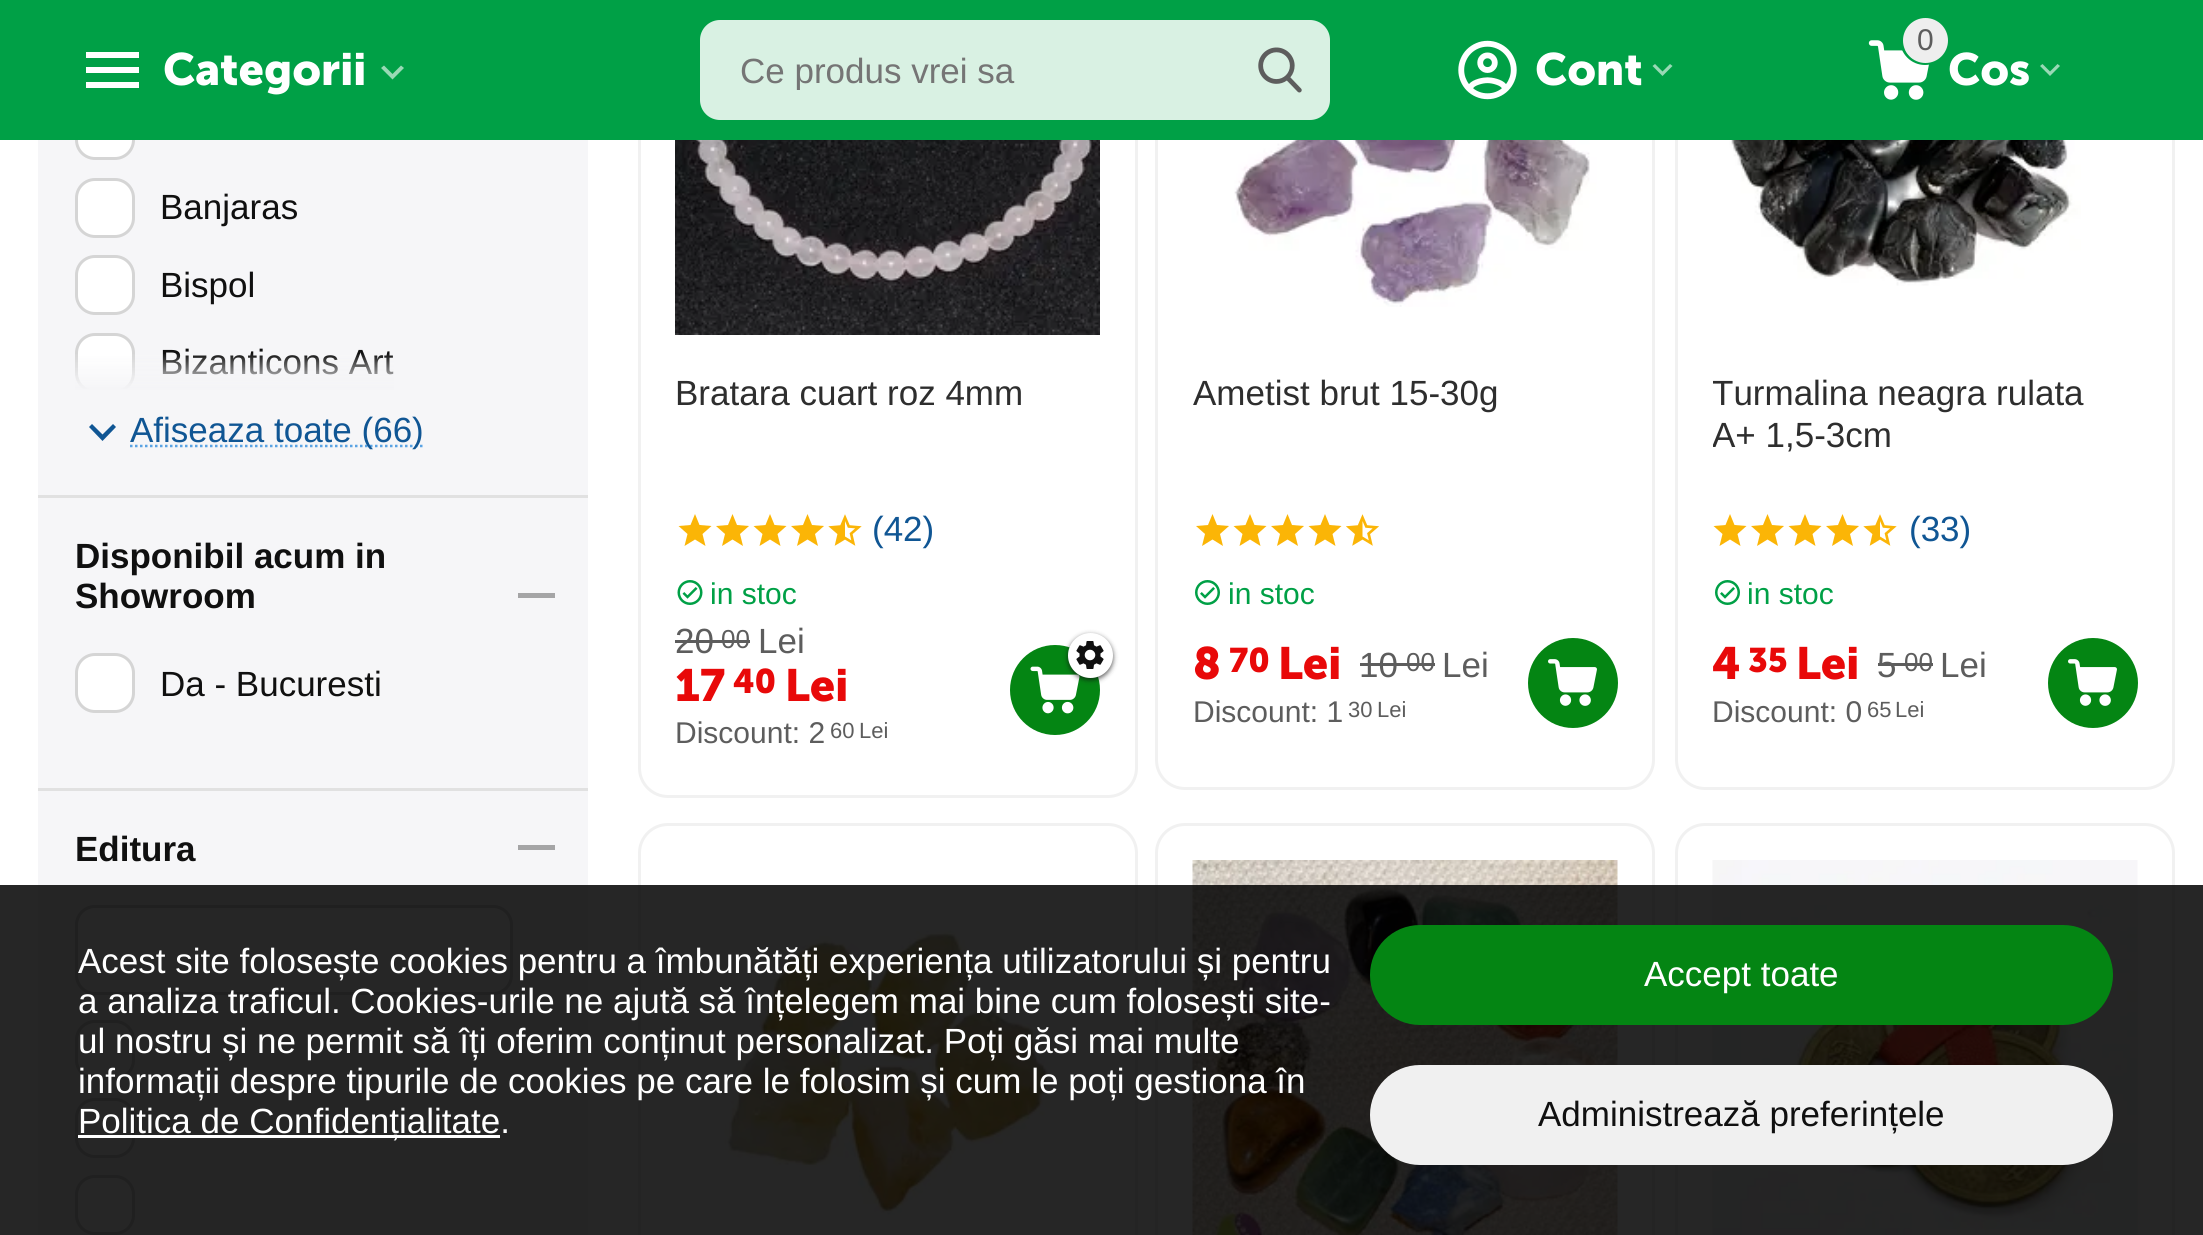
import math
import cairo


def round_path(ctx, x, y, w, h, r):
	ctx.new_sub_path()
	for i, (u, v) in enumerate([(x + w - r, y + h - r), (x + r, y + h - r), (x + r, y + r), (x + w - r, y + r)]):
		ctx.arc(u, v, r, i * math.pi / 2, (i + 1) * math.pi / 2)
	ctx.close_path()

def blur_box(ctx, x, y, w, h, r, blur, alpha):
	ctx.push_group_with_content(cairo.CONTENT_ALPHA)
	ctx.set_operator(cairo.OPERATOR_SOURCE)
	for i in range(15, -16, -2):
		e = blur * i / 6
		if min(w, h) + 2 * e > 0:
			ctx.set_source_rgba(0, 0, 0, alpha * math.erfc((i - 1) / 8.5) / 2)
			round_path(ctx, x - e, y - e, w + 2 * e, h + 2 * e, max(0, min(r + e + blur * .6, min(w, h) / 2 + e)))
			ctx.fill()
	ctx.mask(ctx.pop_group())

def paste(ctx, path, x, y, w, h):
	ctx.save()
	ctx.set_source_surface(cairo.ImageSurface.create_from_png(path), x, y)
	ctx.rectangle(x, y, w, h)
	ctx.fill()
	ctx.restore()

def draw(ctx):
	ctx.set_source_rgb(1, 1, 1)
	ctx.paint()
	ctx.set_source_rgb(0.961, 0.961, 0.969)
	ctx.rectangle(38, 140, 550, 1095)
	ctx.fill()
	ctx.set_source_rgb(1, 1, 1)
	round_path(ctx, 76.5, 101.5, 57, 57, 18.5)
	ctx.fill_preserve()
	ctx.set_source_rgb(0.835, 0.835, 0.835)
	ctx.set_line_width(3)
	ctx.stroke()
	round_path(ctx, 639.5, -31.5, 497, 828, 28.5)
	ctx.set_source_rgb(0.945, 0.945, 0.945)
	ctx.stroke()
	round_path(ctx, 1156.5, -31.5, 497, 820, 28.5)
	ctx.stroke()
	round_path(ctx, 1676.5, -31.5, 497, 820, 28.5)
	ctx.stroke()
	ctx.set_source_rgb(0, 0.627, 0.275)
	ctx.rectangle(0, 0, 2203, 140)
	ctx.fill()
	ctx.set_source_rgb(1, 1, 1)
	ctx.new_path()
	ctx.move_to(86, 88)
	ctx.line_to(139, 88)
	ctx.line_to(139, 82)
	ctx.line_to(86, 82)
	ctx.close_path()
	ctx.move_to(86, 73)
	ctx.line_to(139, 73)
	ctx.line_to(139, 67)
	ctx.line_to(86, 67)
	ctx.close_path()
	ctx.move_to(86, 52)
	ctx.line_to(86, 58)
	ctx.line_to(139, 58)
	ctx.line_to(139, 52)
	ctx.close_path()
	ctx.fill()
	ctx.select_font_face('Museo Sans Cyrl', cairo.FONT_SLANT_NORMAL, cairo.FONT_WEIGHT_BOLD)
	ctx.set_font_size(45)
	ctx.move_to(163, 85)
	ctx.show_text('Categorii')
	ctx.set_source_rgb(0.6, 0.851, 0.71)
	ctx.new_path()
	ctx.move_to(401, 65.5)
	ctx.line_to(392.5, 74)
	ctx.line_to(384, 65.5)
	ctx.line_to(381, 68)
	ctx.line_to(392.5, 79.5)
	ctx.line_to(404, 68)
	ctx.close_path()
	ctx.fill()
	ctx.set_source_rgb(0.851, 0.945, 0.89)
	round_path(ctx, 700, 20, 630, 100, 20)
	ctx.fill()
	ctx.save()
	ctx.rectangle(740, 50, 488, 40)
	ctx.clip()
	ctx.select_font_face('Liberation Sans')
	ctx.set_font_size(35)
	ctx.set_source_rgb(0.459, 0.459, 0.459)
	ctx.move_to(740, 83)
	ctx.show_text('Ce produs vrei sa')
	ctx.restore()
	paste(ctx, 'media/1.png', 1258, 47, 44, 46)
	paste(ctx, 'media/2.png', 1458, 40, 59, 60)
	ctx.set_source_rgb(1, 1, 1)
	ctx.move_to(1535, 85)
	ctx.show_text('Cont')
	ctx.set_source_rgb(0.6, 0.851, 0.71)
	ctx.new_path()
	ctx.move_to(1670, 64)
	ctx.line_to(1662.5, 71.5)
	ctx.line_to(1655, 64)
	ctx.line_to(1652.5, 66)
	ctx.line_to(1662.5, 76)
	ctx.line_to(1672.5, 66)
	ctx.close_path()
	ctx.fill()
	paste(ctx, 'media/3.png', 1868, 40, 61, 60)
	ctx.set_source_rgb(1, 1, 1)
	ctx.move_to(1948, 85)
	ctx.show_text('Cos')
	ctx.new_path()
	ctx.arc(1925, 40, 23.5, 0, 2 * math.pi)
	ctx.set_source_rgb(0, 0.627, 0.275)
	ctx.stroke()
	ctx.set_source_rgb(0.933, 0.933, 0.933)
	ctx.arc(1925.5, 40.5, 22.5, 0, 2 * math.pi)
	ctx.fill()
	ctx.select_font_face('Liberation Sans')
	ctx.set_font_size(30)
	ctx.set_source_rgb(0.365, 0.365, 0.365)
	ctx.move_to(1917, 50)
	ctx.show_text('0')
	ctx.set_source_rgb(0.6, 0.851, 0.71)
	ctx.new_path()
	ctx.move_to(2057.5, 64)
	ctx.line_to(2050, 71.5)
	ctx.line_to(2042.5, 64)
	ctx.line_to(2040, 66)
	ctx.line_to(2050, 76)
	ctx.line_to(2060, 66)
	ctx.close_path()
	ctx.fill()
	ctx.set_source_rgb(1, 1, 1)
	round_path(ctx, 76.5, 179.5, 57, 57, 18.5)
	ctx.fill_preserve()
	ctx.set_source_rgb(0.835, 0.835, 0.835)
	ctx.stroke()
	ctx.set_font_size(35)
	ctx.set_source_rgb(0.063, 0.063, 0.063)
	ctx.move_to(160, 219)
	ctx.show_text('Banjaras')
	ctx.set_source_rgb(1, 1, 1)
	round_path(ctx, 76.5, 256.5, 57, 57, 18.5)
	ctx.fill_preserve()
	ctx.set_source_rgb(0.835, 0.835, 0.835)
	ctx.stroke()
	ctx.set_source_rgb(0.063, 0.063, 0.063)
	ctx.move_to(160, 297)
	ctx.show_text('Bispol')
	ctx.save()
	ctx.rectangle(75, 0, 438, 390)
	ctx.clip()
	ctx.set_source_rgb(1, 1, 1)
	round_path(ctx, 76.5, 334.5, 57, 57, 18.5)
	ctx.fill_preserve()
	ctx.set_source_rgb(0.835, 0.835, 0.835)
	ctx.stroke()
	ctx.restore()
	ctx.move_to(160, 374)
	ctx.show_text('Bizanticons Art')
	gradient = cairo.LinearGradient(294, 353, 294, 390)
	gradient.add_color_stop_rgba(0, 0.961, 0.961, 0.969, 0)
	gradient.add_color_stop_rgba(1, 0.961, 0.961, 0.969, 1)
	ctx.set_source(gradient)
	ctx.rectangle(75, 354, 319, 36)
	ctx.fill()
	ctx.set_source_rgb(0.063, 0.337, 0.58)
	ctx.new_path()
	ctx.move_to(113, 424)
	ctx.line_to(102.5, 434.5)
	ctx.line_to(92, 424)
	ctx.line_to(89, 427)
	ctx.line_to(102.5, 441)
	ctx.line_to(116, 427)
	ctx.close_path()
	ctx.fill()
	ctx.new_path()
	ctx.move_to(130, 446)
	ctx.line_to(424, 446)
	ctx.set_source_rgb(0.353, 0.639, 0.89)
	ctx.set_line_width(2.5)
	ctx.set_dash([2.5, 2.5])
	ctx.stroke()
	ctx.set_source_rgb(0.063, 0.337, 0.58)
	ctx.move_to(130, 442)
	ctx.show_text('Afiseaza toate (66)')
	ctx.set_source_rgb(0.882, 0.882, 0.882)
	ctx.rectangle(38, 495, 550, 3)
	ctx.fill()
	ctx.select_font_face('Liberation Sans', cairo.FONT_SLANT_NORMAL, cairo.FONT_WEIGHT_BOLD)
	ctx.set_source_rgb(0.063, 0.063, 0.063)
	ctx.move_to(75, 568)
	ctx.show_text('Disponibil acum in')
	ctx.move_to(75, 608)
	ctx.show_text('Showroom')
	ctx.set_source_rgb(0.647, 0.647, 0.651)
	ctx.rectangle(518, 593, 37, 5)
	ctx.fill()
	ctx.set_source_rgb(1, 1, 1)
	round_path(ctx, 76.5, 654.5, 57, 57, 18.5)
	ctx.fill_preserve()
	ctx.set_source_rgb(0.835, 0.835, 0.835)
	ctx.set_line_width(3)
	ctx.set_dash([])
	ctx.stroke()
	ctx.select_font_face('Liberation Sans')
	ctx.set_source_rgb(0.063, 0.063, 0.063)
	ctx.move_to(160, 696)
	ctx.show_text('Da - Bucuresti')
	ctx.set_source_rgb(0.882, 0.882, 0.882)
	ctx.rectangle(38, 788, 550, 3)
	ctx.fill()
	ctx.select_font_face('Liberation Sans', cairo.FONT_SLANT_NORMAL, cairo.FONT_WEIGHT_BOLD)
	ctx.set_source_rgb(0.063, 0.063, 0.063)
	ctx.move_to(75, 861)
	ctx.show_text('Editura')
	ctx.set_source_rgb(0.647, 0.647, 0.651)
	ctx.rectangle(518, 845, 37, 5)
	ctx.fill()
	ctx.set_source_rgb(1, 1, 1)
	round_path(ctx, 76.5, 906.5, 435, 87, 18.5)
	ctx.fill_preserve()
	ctx.set_source_rgb(0.835, 0.835, 0.835)
	ctx.stroke()
	ctx.set_source_rgb(1, 1, 1)
	round_path(ctx, 76.5, 1021.5, 57, 57, 18.5)
	ctx.fill_preserve()
	ctx.set_source_rgb(0.835, 0.835, 0.835)
	ctx.stroke()
	ctx.set_source_rgb(1, 1, 1)
	round_path(ctx, 76.5, 1099.5, 57, 57, 18.5)
	ctx.fill_preserve()
	ctx.set_source_rgb(0.835, 0.835, 0.835)
	ctx.stroke()
	ctx.set_source_rgb(1, 1, 1)
	round_path(ctx, 76.5, 1176.5, 57, 57, 18.5)
	ctx.fill_preserve()
	ctx.set_source_rgb(0.835, 0.835, 0.835)
	ctx.stroke()
	paste(ctx, 'media/4.png', 675, 140, 425, 195)
	ctx.select_font_face('Liberation Sans')
	ctx.set_source_rgb(0.18, 0.18, 0.18)
	ctx.move_to(675, 405)
	ctx.show_text('Bratara cuart roz 4mm')
	ctx.set_source_rgb(0.984, 0.71, 0.027)
	ctx.new_path()
	ctx.move_to(695, 539.5)
	ctx.line_to(705.5, 546)
	ctx.line_to(702.5, 534)
	ctx.line_to(711.5, 526)
	ctx.line_to(699.5, 525)
	ctx.line_to(695, 514)
	ctx.line_to(690.5, 525)
	ctx.line_to(678.5, 526)
	ctx.line_to(687.5, 534)
	ctx.line_to(684.5, 546)
	ctx.close_path()
	ctx.fill()
	ctx.new_path()
	ctx.move_to(732.5, 539.5)
	ctx.line_to(743, 546)
	ctx.line_to(740, 534)
	ctx.line_to(749, 526)
	ctx.line_to(737, 525)
	ctx.line_to(732.5, 514)
	ctx.line_to(728, 525)
	ctx.line_to(716, 526)
	ctx.line_to(725, 534)
	ctx.line_to(722, 546)
	ctx.close_path()
	ctx.fill()
	ctx.new_path()
	ctx.move_to(770, 539.5)
	ctx.line_to(780.5, 546)
	ctx.line_to(777.5, 534)
	ctx.line_to(786.5, 526)
	ctx.line_to(774.5, 525)
	ctx.line_to(770, 514)
	ctx.line_to(765.5, 525)
	ctx.line_to(753.5, 526)
	ctx.line_to(762.5, 534)
	ctx.line_to(759.5, 546)
	ctx.close_path()
	ctx.fill()
	ctx.new_path()
	ctx.move_to(807.5, 539.5)
	ctx.line_to(818, 546)
	ctx.line_to(815, 534)
	ctx.line_to(824, 526)
	ctx.line_to(812, 525)
	ctx.line_to(807.5, 514)
	ctx.line_to(803, 525)
	ctx.line_to(791, 526)
	ctx.line_to(800, 534)
	ctx.line_to(797, 546)
	ctx.close_path()
	ctx.fill()
	paste(ctx, 'media/5.png', 828, 514, 34, 32)
	ctx.set_source_rgb(0.063, 0.337, 0.58)
	ctx.move_to(872, 541)
	ctx.show_text('(42)')
	paste(ctx, 'media/6.png', 677, 580, 26, 25)
	ctx.set_font_size(30)
	ctx.set_source_rgb(0, 0.627, 0.275)
	ctx.move_to(710, 604)
	ctx.show_text('in stoc')
	ctx.set_font_size(35)
	ctx.set_source_rgb(0.365, 0.365, 0.365)
	ctx.move_to(675, 653)
	ctx.show_text('20')
	ctx.set_font_size(26)
	ctx.move_to(721, 648)
	ctx.show_text('00')
	ctx.rectangle(675, 640, 75, 3)
	ctx.fill()
	ctx.set_font_size(35)
	ctx.move_to(758, 653)
	ctx.show_text('Lei')
	ctx.select_font_face('Museo Sans Cyrl', cairo.FONT_SLANT_NORMAL, cairo.FONT_WEIGHT_BOLD)
	ctx.set_font_size(45)
	ctx.set_source_rgb(0.91, 0.039, 0.039)
	ctx.move_to(675, 701)
	ctx.show_text('17')
	ctx.set_font_size(34)
	ctx.move_to(733, 693)
	ctx.show_text('40')
	ctx.set_font_size(45)
	ctx.move_to(785, 701)
	ctx.show_text('Lei')
	ctx.select_font_face('Liberation Sans')
	ctx.set_font_size(30)
	ctx.set_source_rgb(0.365, 0.365, 0.365)
	ctx.move_to(675, 743)
	ctx.show_text('Discount: 2')
	ctx.set_font_size(22)
	ctx.move_to(830, 738)
	ctx.show_text('60')
	ctx.move_to(859, 738)
	ctx.show_text('Lei')
	ctx.set_source_rgb(0.016, 0.522, 0.078)
	ctx.new_path()
	ctx.arc(1055, 690, 45, 0, 2 * math.pi)
	ctx.fill()
	paste(ctx, 'media/7.png', 1030, 666, 50, 48)
	ctx.set_source_rgb(0.063, 0.063, 0.063)
	blur_box(ctx, 1068, 635, 45, 45, 22.5, 2.5, 0.7)
	ctx.set_source_rgb(1, 1, 1)
	ctx.arc(1090.5, 655.5, 22.5, 0, 2 * math.pi)
	ctx.fill()
	paste(ctx, 'media/8.png', 1076, 641, 28, 28)
	paste(ctx, 'media/9.png', 1207, 140, 396, 167)
	ctx.set_font_size(35)
	ctx.set_source_rgb(0.18, 0.18, 0.18)
	ctx.move_to(1193, 405)
	ctx.show_text('Ametist brut 15-30g')
	ctx.set_source_rgb(0.984, 0.71, 0.027)
	ctx.new_path()
	ctx.move_to(1212.5, 539.5)
	ctx.line_to(1223, 546)
	ctx.line_to(1220, 534)
	ctx.line_to(1229, 526)
	ctx.line_to(1217, 525)
	ctx.line_to(1212.5, 514)
	ctx.line_to(1208, 525)
	ctx.line_to(1196, 526)
	ctx.line_to(1205, 534)
	ctx.line_to(1202, 546)
	ctx.close_path()
	ctx.fill()
	ctx.new_path()
	ctx.move_to(1250, 539.5)
	ctx.line_to(1260.5, 546)
	ctx.line_to(1257.5, 534)
	ctx.line_to(1266.5, 526)
	ctx.line_to(1254.5, 525)
	ctx.line_to(1250, 514)
	ctx.line_to(1245.5, 525)
	ctx.line_to(1233.5, 526)
	ctx.line_to(1242.5, 534)
	ctx.line_to(1239.5, 546)
	ctx.close_path()
	ctx.fill()
	ctx.new_path()
	ctx.move_to(1287.5, 539.5)
	ctx.line_to(1298, 546)
	ctx.line_to(1295, 534)
	ctx.line_to(1304, 526)
	ctx.line_to(1292, 525)
	ctx.line_to(1287.5, 514)
	ctx.line_to(1283, 525)
	ctx.line_to(1271, 526)
	ctx.line_to(1280, 534)
	ctx.line_to(1277, 546)
	ctx.close_path()
	ctx.fill()
	ctx.new_path()
	ctx.move_to(1325, 539.5)
	ctx.line_to(1335.5, 546)
	ctx.line_to(1332.5, 534)
	ctx.line_to(1341.5, 526)
	ctx.line_to(1329.5, 525)
	ctx.line_to(1325, 514)
	ctx.line_to(1320.5, 525)
	ctx.line_to(1308.5, 526)
	ctx.line_to(1317.5, 534)
	ctx.line_to(1314.5, 546)
	ctx.close_path()
	ctx.fill()
	paste(ctx, 'media/10.png', 1346, 514, 33, 32)
	paste(ctx, 'media/11.png', 1195, 580, 25, 25)
	ctx.set_font_size(30)
	ctx.set_source_rgb(0, 0.627, 0.275)
	ctx.move_to(1228, 604)
	ctx.show_text('in stoc')
	ctx.select_font_face('Museo Sans Cyrl', cairo.FONT_SLANT_NORMAL, cairo.FONT_WEIGHT_BOLD)
	ctx.set_font_size(45)
	ctx.set_source_rgb(0.91, 0.039, 0.039)
	ctx.move_to(1193, 679)
	ctx.show_text('8')
	ctx.set_font_size(34)
	ctx.move_to(1229, 672)
	ctx.show_text('70')
	ctx.set_font_size(45)
	ctx.move_to(1278, 679)
	ctx.show_text('Lei')
	ctx.select_font_face('Liberation Sans')
	ctx.set_font_size(35)
	ctx.set_source_rgb(0.365, 0.365, 0.365)
	ctx.move_to(1359, 677)
	ctx.show_text('10')
	ctx.set_font_size(26)
	ctx.move_to(1406, 671)
	ctx.show_text('00')
	ctx.rectangle(1360, 663, 75, 3)
	ctx.fill()
	ctx.set_font_size(35)
	ctx.move_to(1442, 677)
	ctx.show_text('Lei')
	ctx.set_font_size(30)
	ctx.move_to(1193, 722)
	ctx.show_text('Discount: 1')
	ctx.set_font_size(22)
	ctx.move_to(1348, 717)
	ctx.show_text('30')
	ctx.move_to(1377, 717)
	ctx.show_text('Lei')
	ctx.set_source_rgb(0.016, 0.522, 0.078)
	ctx.new_path()
	ctx.arc(1573, 683, 45, 0, 2 * math.pi)
	ctx.fill()
	paste(ctx, 'media/12.png', 1548, 659, 49, 47)
	paste(ctx, 'media/13.png', 1729, 140, 352, 146)
	ctx.save()
	ctx.rectangle(1713, 373, 425, 125)
	ctx.clip()
	ctx.set_font_size(35)
	ctx.set_source_rgb(0.18, 0.18, 0.18)
	ctx.move_to(1712, 405)
	ctx.show_text('Turmalina neagra rulata')
	ctx.move_to(1712, 447)
	ctx.show_text('A+ 1,5-3cm')
	ctx.restore()
	ctx.set_source_rgb(0.984, 0.71, 0.027)
	ctx.new_path()
	ctx.move_to(1730, 539.5)
	ctx.line_to(1740.5, 546)
	ctx.line_to(1737.5, 534)
	ctx.line_to(1746.5, 526)
	ctx.line_to(1734.5, 525)
	ctx.line_to(1730, 514)
	ctx.line_to(1725.5, 525)
	ctx.line_to(1713.5, 526)
	ctx.line_to(1722.5, 534)
	ctx.line_to(1719.5, 546)
	ctx.close_path()
	ctx.fill()
	ctx.new_path()
	ctx.move_to(1767.5, 539.5)
	ctx.line_to(1778, 546)
	ctx.line_to(1775, 534)
	ctx.line_to(1784, 526)
	ctx.line_to(1772, 525)
	ctx.line_to(1767.5, 514)
	ctx.line_to(1763, 525)
	ctx.line_to(1751, 526)
	ctx.line_to(1760, 534)
	ctx.line_to(1757, 546)
	ctx.close_path()
	ctx.fill()
	ctx.new_path()
	ctx.move_to(1805, 539.5)
	ctx.line_to(1815.5, 546)
	ctx.line_to(1812.5, 534)
	ctx.line_to(1821.5, 526)
	ctx.line_to(1809.5, 525)
	ctx.line_to(1805, 514)
	ctx.line_to(1800.5, 525)
	ctx.line_to(1788.5, 526)
	ctx.line_to(1797.5, 534)
	ctx.line_to(1794.5, 546)
	ctx.close_path()
	ctx.fill()
	ctx.new_path()
	ctx.move_to(1842.5, 539.5)
	ctx.line_to(1853, 546)
	ctx.line_to(1850, 534)
	ctx.line_to(1859, 526)
	ctx.line_to(1847, 525)
	ctx.line_to(1842.5, 514)
	ctx.line_to(1838, 525)
	ctx.line_to(1826, 526)
	ctx.line_to(1835, 534)
	ctx.line_to(1832, 546)
	ctx.close_path()
	ctx.fill()
	paste(ctx, 'media/5.png', 1863, 514, 34, 32)
	ctx.set_font_size(35)
	ctx.set_source_rgb(0.063, 0.337, 0.58)
	ctx.move_to(1909, 541)
	ctx.show_text('(33)')
	paste(ctx, 'media/11.png', 1715, 580, 25, 25)
	ctx.set_font_size(30)
	ctx.set_source_rgb(0, 0.627, 0.275)
	ctx.move_to(1747, 604)
	ctx.show_text('in stoc')
	ctx.select_font_face('Museo Sans Cyrl', cairo.FONT_SLANT_NORMAL, cairo.FONT_WEIGHT_BOLD)
	ctx.set_font_size(45)
	ctx.set_source_rgb(0.91, 0.039, 0.039)
	ctx.move_to(1712, 679)
	ctx.show_text('4')
	ctx.set_font_size(34)
	ctx.move_to(1748, 672)
	ctx.show_text('35')
	ctx.set_font_size(45)
	ctx.move_to(1796, 679)
	ctx.show_text('Lei')
	ctx.select_font_face('Liberation Sans')
	ctx.set_font_size(35)
	ctx.set_source_rgb(0.365, 0.365, 0.365)
	ctx.move_to(1877, 677)
	ctx.show_text('5')
	ctx.set_font_size(26)
	ctx.move_to(1904, 671)
	ctx.show_text('00')
	ctx.rectangle(1878, 663, 55, 3)
	ctx.fill()
	ctx.set_font_size(35)
	ctx.move_to(1940, 677)
	ctx.show_text('Lei')
	ctx.set_font_size(30)
	ctx.move_to(1712, 722)
	ctx.show_text('Discount: 0')
	ctx.set_font_size(22)
	ctx.move_to(1867, 717)
	ctx.show_text('65')
	ctx.move_to(1895, 717)
	ctx.show_text('Lei')
	ctx.set_source_rgb(0.016, 0.522, 0.078)
	ctx.new_path()
	ctx.arc(2093, 683, 45, 0, 2 * math.pi)
	ctx.fill()
	paste(ctx, 'media/12.png', 2068, 659, 49, 47)
	round_path(ctx, 639.5, 824.5, 497, 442, 28.5)
	ctx.set_source_rgb(0.945, 0.945, 0.945)
	ctx.stroke()
	paste(ctx, 'media/14.png', 724, 930, 327, 285)
	round_path(ctx, 1156.5, 824.5, 497, 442, 28.5)
	ctx.stroke()
	paste(ctx, 'media/15.png', 1192, 860, 426, 375)
	round_path(ctx, 1676.5, 824.5, 497, 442, 28.5)
	ctx.stroke()
	paste(ctx, 'media/16.png', 1712, 860, 426, 375)
	ctx.set_source_rgba(0, 0, 0, 0.85)
	ctx.rectangle(0, 885, 2203, 350)
	ctx.fill()
	ctx.set_font_size(35)
	ctx.set_source_rgb(1, 1, 1)
	for x, y, s in [
		(78, 973, 'Acest site folosește cookies pentru a îmbunătăți experiența utilizatorului și pentru'),
		(78, 1013, 'a analiza traficul. Cookies-urile ne ajută să înțelegem mai bine cum folosești site-'),
		(78, 1053, 'ul nostru și ne permit să îți oferim conținut personalizat. Poți găsi mai multe'),
		(78, 1093, 'informații despre tipurile de cookies pe care le folosim și cum le poți gestiona în'),
	]:
		ctx.move_to(x, y)
		ctx.show_text(s)
	ctx.rectangle(78, 1135, 422, 3)
	ctx.fill()
	ctx.move_to(78, 1133)
	ctx.show_text('Politica de Confidențialitate.')
	ctx.set_source_rgb(0.016, 0.522, 0.078)
	round_path(ctx, 1370, 925, 743, 100, 50)
	ctx.fill()
	ctx.set_source_rgb(1, 1, 1)
	ctx.move_to(1644, 986)
	ctx.show_text('Accept toate')
	ctx.set_source_rgb(0.941, 0.941, 0.941)
	round_path(ctx, 1370, 1065, 743, 100, 50)
	ctx.fill()
	ctx.set_source_rgb(0.063, 0.063, 0.063)
	ctx.move_to(1538, 1126)
	ctx.show_text('Administrează preferințele')


surface = cairo.ImageSurface(cairo.FORMAT_RGB24, 2203, 1235)
ctx = cairo.Context(surface)
options = cairo.FontOptions()
options.set_hint_metrics(cairo.HINT_METRICS_OFF)
options.set_hint_style(cairo.HINT_STYLE_NONE)
ctx.set_font_options(options)
ctx.set_miter_limit(4)
draw(ctx)
surface.write_to_png('image.png')
